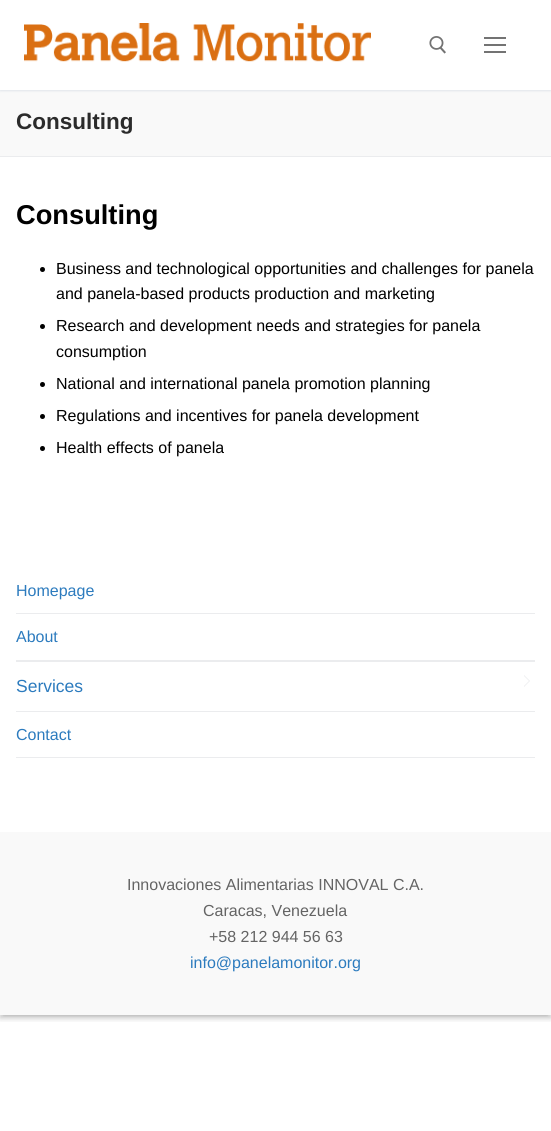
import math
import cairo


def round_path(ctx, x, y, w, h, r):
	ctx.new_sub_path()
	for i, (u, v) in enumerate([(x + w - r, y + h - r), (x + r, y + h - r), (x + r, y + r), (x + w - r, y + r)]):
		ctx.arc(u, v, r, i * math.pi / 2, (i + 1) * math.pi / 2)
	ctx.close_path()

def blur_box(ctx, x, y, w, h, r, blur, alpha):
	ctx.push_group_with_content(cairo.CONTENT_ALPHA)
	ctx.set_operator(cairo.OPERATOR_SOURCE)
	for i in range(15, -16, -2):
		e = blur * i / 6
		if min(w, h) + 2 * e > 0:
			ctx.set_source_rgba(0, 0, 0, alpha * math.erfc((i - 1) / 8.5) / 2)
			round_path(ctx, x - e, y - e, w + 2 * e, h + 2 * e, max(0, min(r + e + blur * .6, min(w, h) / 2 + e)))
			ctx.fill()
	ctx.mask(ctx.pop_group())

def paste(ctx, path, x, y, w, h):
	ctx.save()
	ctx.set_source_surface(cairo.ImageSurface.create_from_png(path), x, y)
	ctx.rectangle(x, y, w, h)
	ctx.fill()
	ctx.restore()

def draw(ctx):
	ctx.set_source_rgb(1, 1, 1)
	ctx.paint()
	ctx.save()
	ctx.rectangle(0, 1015, 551, 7)
	ctx.clip()
	ctx.set_source_rgb(0, 0, 0)
	blur_box(ctx, 0, 3, 551, 1015, 0, 3, 0.23)
	ctx.restore()
	ctx.save()
	ctx.rectangle(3, 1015, 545, 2)
	ctx.clip()
	ctx.set_source_rgb(0, 0, 0)
	blur_box(ctx, 4, 7, 543, 1007, 0, 3, 0.16)
	ctx.restore()
	ctx.set_source_rgb(0.976, 0.976, 0.976)
	ctx.rectangle(0, 90, 551, 66)
	ctx.fill()
	ctx.save()
	ctx.rectangle(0, 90, 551, 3)
	ctx.clip()
	ctx.set_source_rgb(0.882, 0.898, 0.918)
	blur_box(ctx, 0, 1, 551, 90, 0, 1, 1)
	ctx.restore()
	paste(ctx, 'media/1.png', 24, 23, 347, 39)
	paste(ctx, 'media/2.png', 429, 36, 17, 18)
	ctx.set_source_rgb(0.451, 0.451, 0.451)
	ctx.rectangle(484, 44, 22, 2)
	ctx.rectangle(484, 37, 22, 2)
	ctx.rectangle(484, 51, 22, 2)
	ctx.fill()
	ctx.set_source_rgb(0.918, 0.925, 0.933)
	ctx.rectangle(0, 156, 551, 1)
	ctx.fill()
	ctx.select_font_face('Liberation Sans', cairo.FONT_SLANT_NORMAL, cairo.FONT_WEIGHT_BOLD)
	ctx.set_font_size(22.5)
	ctx.set_source_rgb(0.169, 0.169, 0.169)
	ctx.move_to(16, 129)
	ctx.show_text('Consulting')
	ctx.set_font_size(27.25)
	ctx.set_source_rgb(0, 0, 0)
	ctx.move_to(16, 224)
	ctx.show_text('Consulting')
	ctx.new_path()
	ctx.arc(42.5, 269.5, 2.5, 0, 2 * math.pi)
	ctx.fill()
	ctx.select_font_face('Liberation Sans')
	ctx.set_font_size(16)
	ctx.move_to(56, 274)
	ctx.show_text('Business and technological opportunities and challenges for panela')
	ctx.move_to(56, 299)
	ctx.show_text('and panela-based products production and marketing')
	ctx.new_path()
	ctx.arc(42.5, 326.5, 2.5, 0, 2 * math.pi)
	ctx.fill()
	ctx.move_to(56, 331)
	ctx.show_text('Research and development needs and strategies for panela')
	ctx.move_to(56, 357)
	ctx.show_text('consumption')
	ctx.new_path()
	ctx.arc(42.5, 384.5, 2.5, 0, 2 * math.pi)
	ctx.fill()
	ctx.move_to(56, 389)
	ctx.show_text('National and international panela promotion planning')
	ctx.new_path()
	ctx.arc(42.5, 416.5, 2.5, 0, 2 * math.pi)
	ctx.fill()
	ctx.move_to(56, 421)
	ctx.show_text('Regulations and incentives for panela development')
	ctx.new_path()
	ctx.arc(42.5, 448.5, 2.5, 0, 2 * math.pi)
	ctx.fill()
	ctx.move_to(56, 453)
	ctx.show_text('Health effects of panela')
	ctx.set_source_rgb(0.918, 0.925, 0.933)
	ctx.rectangle(16, 613, 519, 1)
	ctx.fill()
	ctx.set_source_rgb(0.173, 0.482, 0.745)
	ctx.move_to(16, 596)
	ctx.show_text('Homepage')
	ctx.set_source_rgb(0.918, 0.925, 0.933)
	ctx.rectangle(16, 660, 519, 2)
	ctx.fill()
	ctx.set_source_rgb(0.173, 0.482, 0.745)
	ctx.move_to(16, 642)
	ctx.show_text('About')
	ctx.set_source_rgb(0.918, 0.925, 0.933)
	ctx.rectangle(16, 711, 519, 1)
	ctx.fill()
	ctx.new_path()
	ctx.move_to(524, 687)
	ctx.line_to(524, 675)
	ctx.line_to(530, 681)
	ctx.close_path()
	ctx.fill()
	ctx.set_source_rgb(1, 1, 1)
	ctx.new_path()
	ctx.move_to(523, 687)
	ctx.line_to(523, 675)
	ctx.line_to(529, 681)
	ctx.close_path()
	ctx.fill()
	ctx.set_font_size(17.5)
	ctx.set_source_rgb(0.173, 0.482, 0.745)
	ctx.move_to(16, 692)
	ctx.show_text('Services')
	ctx.set_source_rgb(0.918, 0.925, 0.933)
	ctx.rectangle(16, 757, 519, 1)
	ctx.fill()
	ctx.set_font_size(16)
	ctx.set_source_rgb(0.173, 0.482, 0.745)
	ctx.move_to(16, 740)
	ctx.show_text('Contact')
	ctx.set_source_rgb(0.976, 0.976, 0.976)
	ctx.rectangle(0, 832, 551, 183)
	ctx.fill()
	ctx.set_source_rgb(0.392, 0.392, 0.392)
	for x, y, s in [
		(127, 890, 'Innovaciones Alimentarias INNOVAL C.A.'),
		(203, 916, 'Caracas, Venezuela'),
		(209, 942, '+58 212 944 56 63'),
	]:
		ctx.move_to(x, y)
		ctx.show_text(s)
	ctx.set_source_rgb(0.173, 0.482, 0.745)
	ctx.move_to(190, 968)
	ctx.show_text('info@panelamonitor.org')


surface = cairo.ImageSurface(cairo.FORMAT_RGB24, 551, 1131)
ctx = cairo.Context(surface)
options = cairo.FontOptions()
options.set_hint_metrics(cairo.HINT_METRICS_OFF)
options.set_hint_style(cairo.HINT_STYLE_NONE)
ctx.set_font_options(options)
ctx.set_miter_limit(4)
draw(ctx)
surface.write_to_png('image.png')
